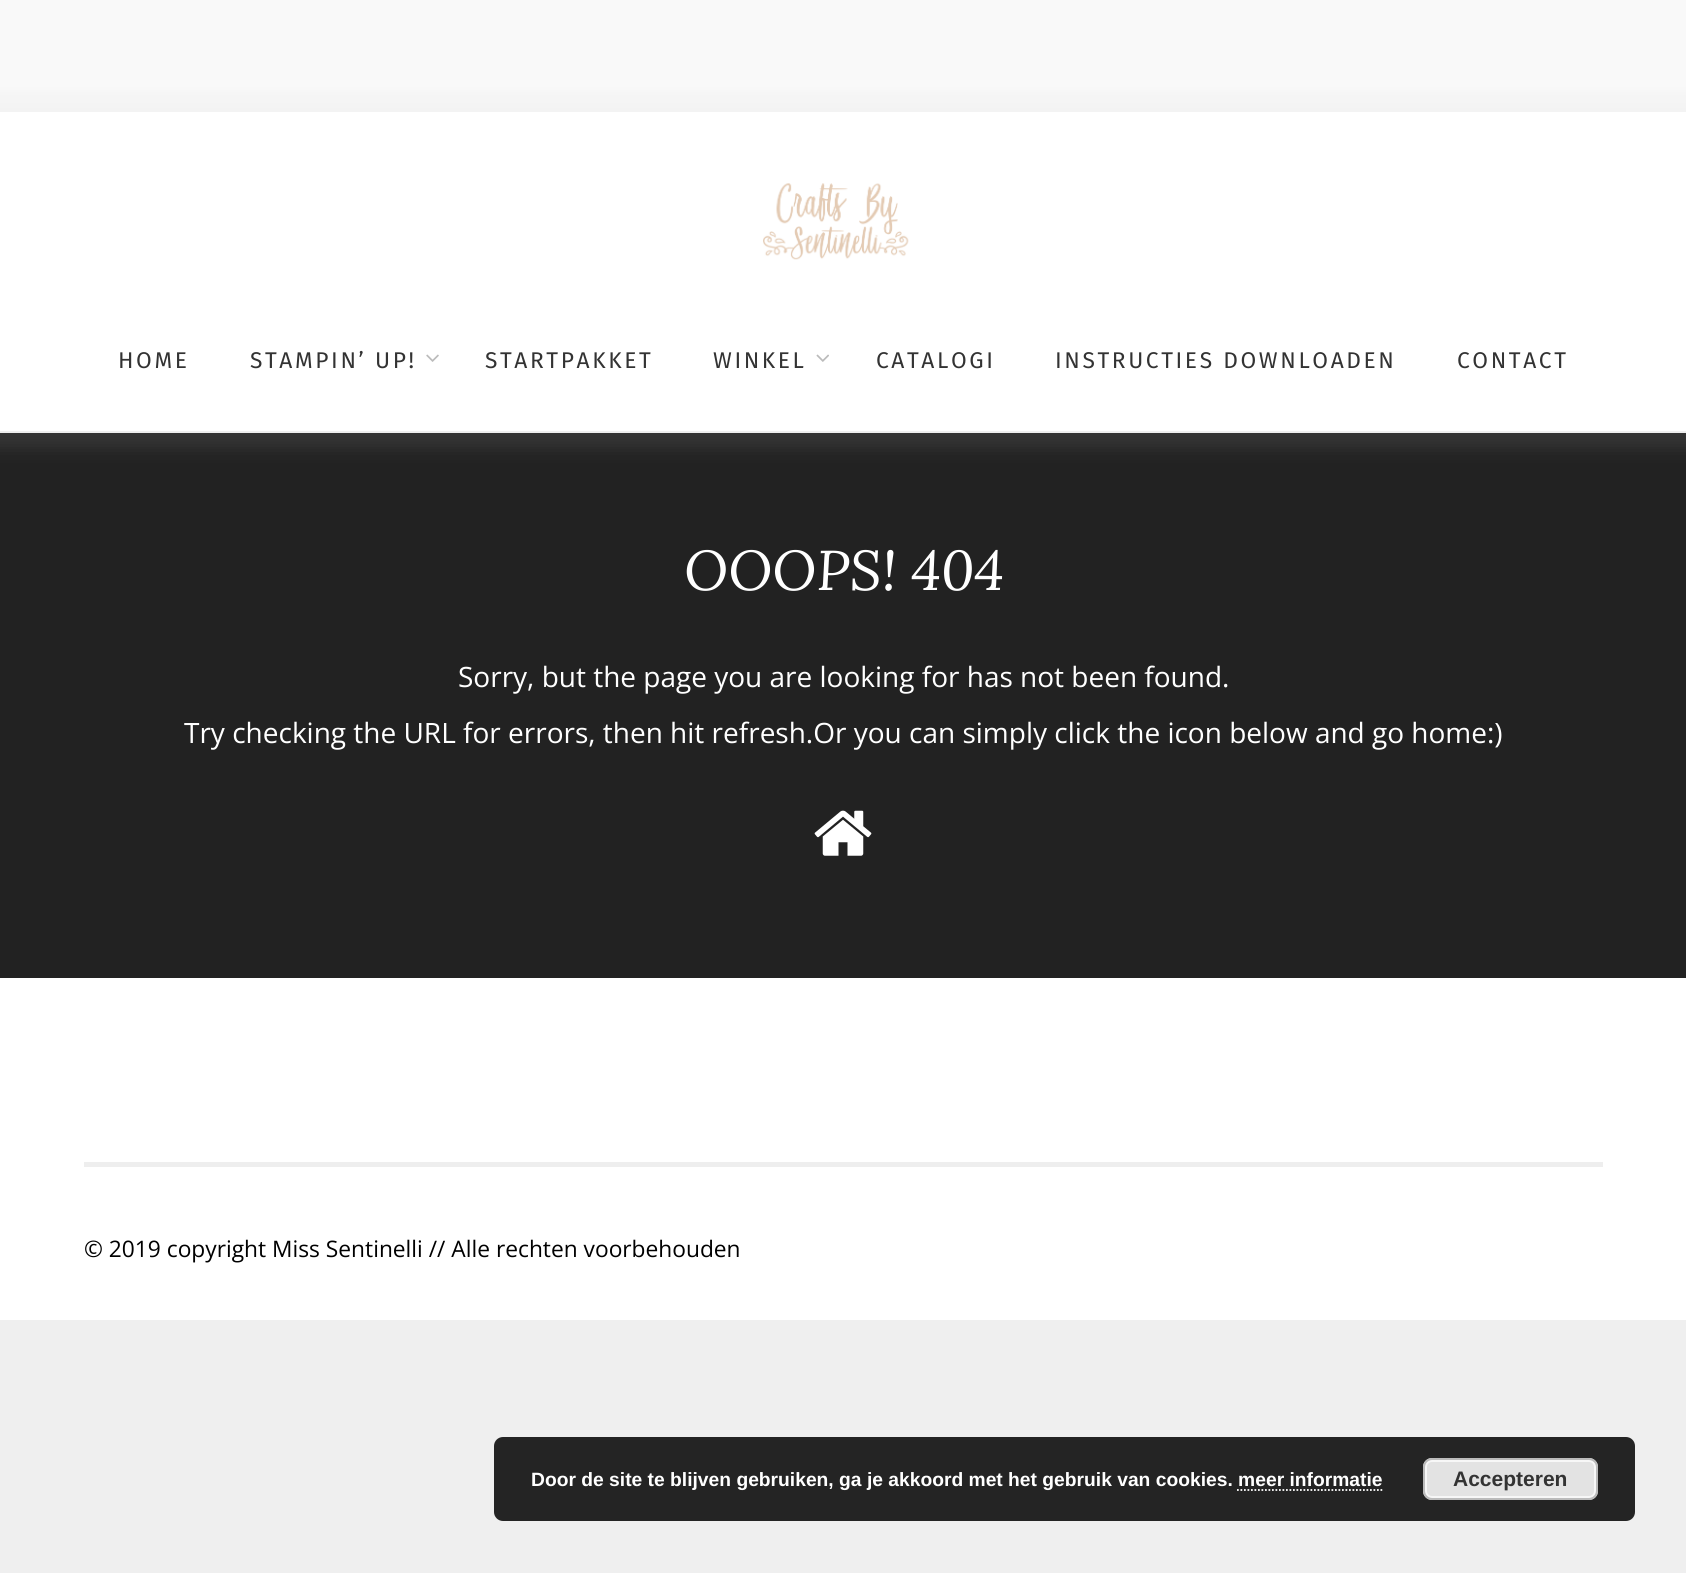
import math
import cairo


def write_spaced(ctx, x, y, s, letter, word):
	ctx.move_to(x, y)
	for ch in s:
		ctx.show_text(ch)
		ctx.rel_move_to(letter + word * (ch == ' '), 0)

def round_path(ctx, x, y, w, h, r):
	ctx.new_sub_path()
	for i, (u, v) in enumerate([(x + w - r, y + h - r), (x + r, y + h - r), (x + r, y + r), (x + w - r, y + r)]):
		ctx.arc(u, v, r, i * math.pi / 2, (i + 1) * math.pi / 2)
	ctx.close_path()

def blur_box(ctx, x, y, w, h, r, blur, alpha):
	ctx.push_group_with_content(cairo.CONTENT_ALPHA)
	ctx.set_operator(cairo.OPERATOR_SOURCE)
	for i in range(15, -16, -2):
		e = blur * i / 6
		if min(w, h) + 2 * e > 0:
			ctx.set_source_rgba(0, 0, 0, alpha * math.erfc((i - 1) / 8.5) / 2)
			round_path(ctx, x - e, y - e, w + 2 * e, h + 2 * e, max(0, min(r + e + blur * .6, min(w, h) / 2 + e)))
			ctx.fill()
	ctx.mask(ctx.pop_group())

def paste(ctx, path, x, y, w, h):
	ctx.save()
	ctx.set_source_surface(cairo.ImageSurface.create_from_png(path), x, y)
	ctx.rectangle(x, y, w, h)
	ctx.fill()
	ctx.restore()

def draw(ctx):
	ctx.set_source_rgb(0.937, 0.937, 0.937)
	ctx.paint()
	ctx.set_source_rgb(0.976, 0.976, 0.976)
	ctx.rectangle(0, 0, 1686, 112)
	ctx.fill()
	ctx.set_source_rgb(1, 1, 1)
	ctx.rectangle(0, 112, 1686, 319)
	ctx.fill()
	ctx.set_source_rgb(0.133, 0.133, 0.133)
	ctx.rectangle(0, 433, 1686, 545)
	ctx.fill()
	ctx.save()
	ctx.set_fill_rule(cairo.FILL_RULE_EVEN_ODD)
	ctx.new_path()
	ctx.move_to(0, 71)
	ctx.line_to(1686, 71)
	ctx.line_to(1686, 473)
	ctx.line_to(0, 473)
	ctx.close_path()
	ctx.move_to(-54, 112)
	ctx.line_to(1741, 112)
	ctx.line_to(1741, 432)
	ctx.line_to(-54, 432)
	ctx.close_path()
	ctx.clip()
	ctx.set_source_rgb(0.765, 0.765, 0.765)
	blur_box(ctx, -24, 96, 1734, 352, 0, 8, 0.12)
	ctx.restore()
	paste(ctx, 'media/1.png', 763, 183, 146, 77)
	ctx.set_source_rgb(0.933, 0.933, 0.933)
	ctx.rectangle(0, 432, 1686, 1)
	ctx.fill()
	ctx.select_font_face('Fira Sans')
	ctx.set_font_size(22.75)
	ctx.set_source_rgb(0.2, 0.2, 0.2)
	write_spaced(ctx, 118, 368, 'HOME', 2.6, 0)
	write_spaced(ctx, 250, 368, 'STAMPIN’ UP!', 2.6, 0)
	paste(ctx, 'media/2.png', 426, 354, 13, 8)
	write_spaced(ctx, 485, 368, 'STARTPAKKET', 2.6, 0)
	write_spaced(ctx, 713, 368, 'WINKEL', 2.6, 0)
	paste(ctx, 'media/3.png', 816, 354, 13, 8)
	for x, y, s in [
		(876, 368, 'CATALOGI'),
		(1055, 368, 'INSTRUCTIES DOWNLOADEN'),
		(1457, 368, 'CONTACT'),
	]:
		write_spaced(ctx, x, y, s, 2.6, 0)
	ctx.select_font_face('Lora', cairo.FONT_SLANT_ITALIC)
	ctx.set_font_size(56)
	ctx.set_source_rgb(1, 1, 1)
	ctx.move_to(684, 590)
	ctx.show_text('OOOPS! 404')
	ctx.select_font_face('Open Sans')
	ctx.set_font_size(28)
	ctx.move_to(458, 687)
	ctx.show_text('Sorry, but the page you are looking for has not been found.')
	ctx.move_to(184, 743)
	ctx.show_text('Try checking the URL for errors, then hit refresh.Or you can simply click the icon below and go home:)')
	paste(ctx, 'media/4.png', 814, 810, 58, 46)
	ctx.rectangle(0, 978, 1686, 342)
	ctx.fill()
	ctx.set_source_rgb(0.933, 0.933, 0.933)
	ctx.rectangle(84, 1162, 1519, 5)
	ctx.fill()
	ctx.set_font_size(22.75)
	ctx.set_source_rgb(0, 0, 0)
	ctx.move_to(84, 1257)
	ctx.show_text('© 2019 copyright Miss Sentinelli // Alle rechten voorbehouden')
	ctx.set_source_rgb(0.141, 0.141, 0.141)
	round_path(ctx, 494, 1437, 1141, 84, 9)
	ctx.fill()
	ctx.select_font_face('Liberation Sans', cairo.FONT_SLANT_NORMAL, cairo.FONT_WEIGHT_BOLD)
	ctx.set_font_size(19.25)
	ctx.set_source_rgb(1, 1, 1)
	ctx.move_to(531, 1486)
	ctx.show_text('Door de site te blijven gebruiken, ga je akkoord met het gebruik van cookies. meer informatie')
	ctx.set_source_rgb(0.89, 0.89, 0.89)
	round_path(ctx, 1423, 1458, 175, 42, 9)
	ctx.fill()
	round_path(ctx, 1426, 1461, 169, 36, 6)
	ctx.set_source_rgb(0.965, 0.965, 0.965)
	ctx.stroke()
	round_path(ctx, 1424, 1459, 173, 40, 8)
	ctx.set_source_rgb(0.733, 0.733, 0.733)
	ctx.stroke()
	ctx.set_font_size(21)
	ctx.set_source_rgb(0.2, 0.2, 0.2)
	ctx.move_to(1453, 1486)
	ctx.show_text('Accepteren')
	ctx.new_path()
	ctx.move_to(1237, 1490)
	ctx.line_to(1382.5, 1490)
	ctx.set_source_rgb(1, 1, 1)
	ctx.set_line_width(1.8)
	ctx.set_dash([1.75, 1.75])
	ctx.stroke()


surface = cairo.ImageSurface(cairo.FORMAT_RGB24, 1686, 1573)
ctx = cairo.Context(surface)
options = cairo.FontOptions()
options.set_hint_metrics(cairo.HINT_METRICS_OFF)
options.set_hint_style(cairo.HINT_STYLE_NONE)
ctx.set_font_options(options)
ctx.set_miter_limit(4)
draw(ctx)
surface.write_to_png('image.png')
